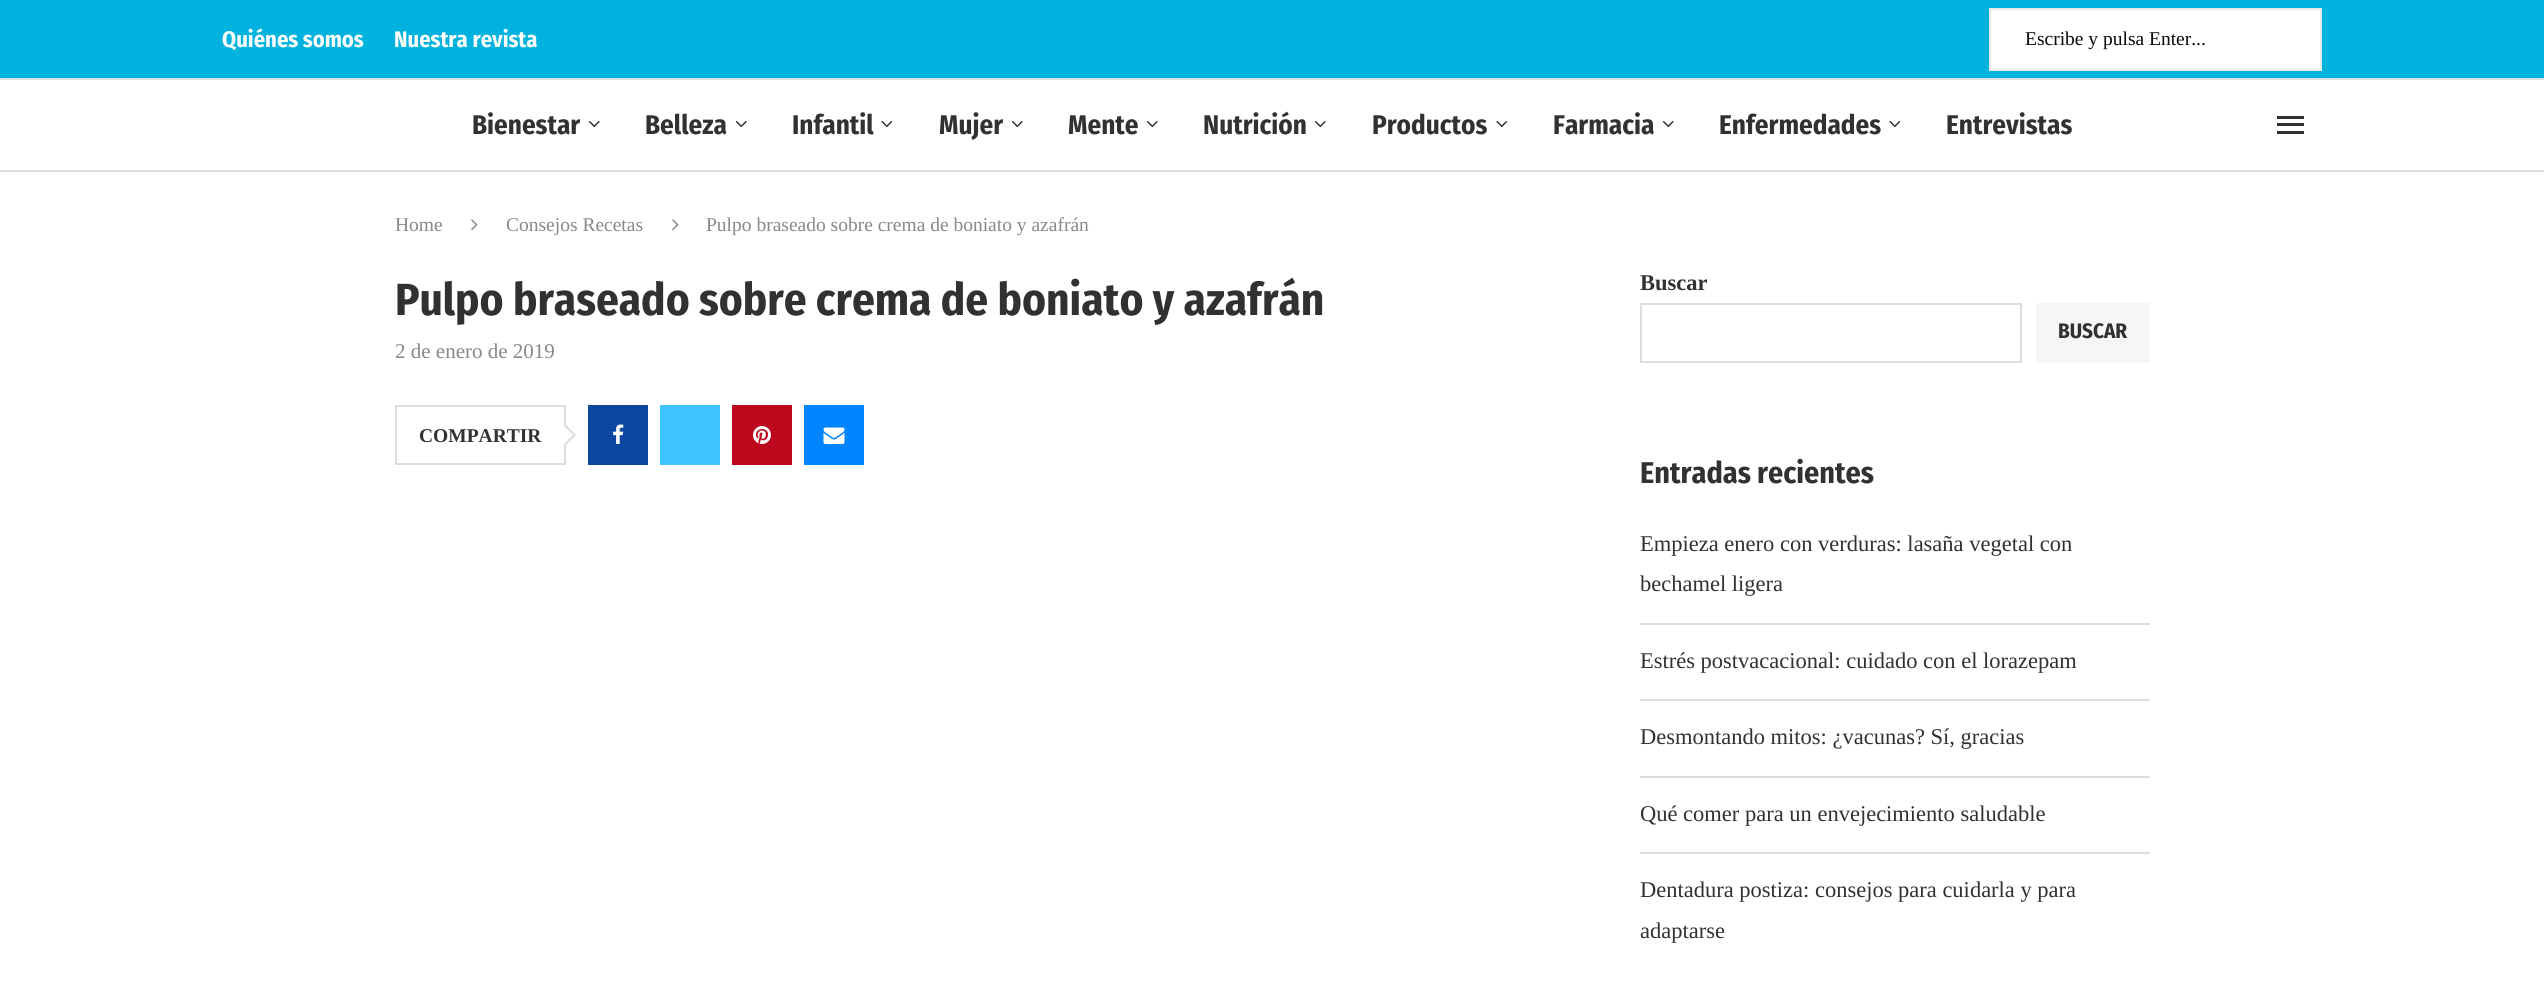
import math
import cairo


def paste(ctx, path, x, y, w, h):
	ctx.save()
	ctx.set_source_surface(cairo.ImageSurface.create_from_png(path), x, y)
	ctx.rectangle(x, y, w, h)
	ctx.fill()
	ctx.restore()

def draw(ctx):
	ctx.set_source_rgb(1, 1, 1)
	ctx.paint()
	ctx.set_source_rgb(0, 0.698, 0.871)
	ctx.rectangle(0, 0, 2544, 78)
	ctx.fill()
	ctx.select_font_face('Fira Sans Condensed', cairo.FONT_SLANT_NORMAL, cairo.FONT_WEIGHT_BOLD)
	ctx.set_font_size(22.5)
	ctx.set_source_rgb(1, 1, 1)
	ctx.move_to(222, 47)
	ctx.show_text('Quiénes somos')
	ctx.move_to(394, 47)
	ctx.show_text('Nuestra revista')
	ctx.rectangle(1990, 9, 331, 61)
	ctx.fill_preserve()
	ctx.set_source_rgb(0.914, 0.914, 0.914)
	ctx.stroke()
	ctx.select_font_face('Liberation Serif')
	ctx.set_font_size(19.5)
	ctx.set_source_rgb(0.039, 0.039, 0.039)
	ctx.move_to(2025, 45)
	ctx.show_text('Escribe y pulsa Enter...')
	ctx.set_source_rgb(0.871, 0.871, 0.871)
	ctx.rectangle(0, 78, 2544, 2)
	ctx.fill()
	ctx.rectangle(0, 170, 2544, 2)
	ctx.fill()
	ctx.select_font_face('Fira Sans Condensed', cairo.FONT_SLANT_NORMAL, cairo.FONT_WEIGHT_BOLD)
	ctx.set_font_size(27)
	ctx.set_source_rgb(0.192, 0.192, 0.192)
	ctx.move_to(472, 134)
	ctx.show_text('Bienestar')
	paste(ctx, 'media/1.png', 588, 120, 12, 8)
	ctx.move_to(645, 134)
	ctx.show_text('Belleza')
	paste(ctx, 'media/1.png', 735, 120, 12, 8)
	ctx.move_to(792, 134)
	ctx.show_text('Infantil')
	paste(ctx, 'media/2.png', 881, 120, 12, 8)
	ctx.move_to(939, 134)
	ctx.show_text('Mujer')
	paste(ctx, 'media/1.png', 1011, 120, 12, 8)
	ctx.move_to(1068, 134)
	ctx.show_text('Mente')
	paste(ctx, 'media/1.png', 1146, 120, 12, 8)
	ctx.move_to(1203, 134)
	ctx.show_text('Nutrición')
	paste(ctx, 'media/1.png', 1314, 120, 12, 8)
	ctx.move_to(1372, 134)
	ctx.show_text('Productos')
	paste(ctx, 'media/2.png', 1496, 120, 12, 8)
	ctx.move_to(1553, 134)
	ctx.show_text('Farmacia')
	paste(ctx, 'media/1.png', 1662, 120, 12, 8)
	ctx.move_to(1719, 134)
	ctx.show_text('Enfermedades')
	paste(ctx, 'media/2.png', 1889, 120, 12, 8)
	ctx.move_to(1946, 134)
	ctx.show_text('Entrevistas')
	ctx.rectangle(2277, 116, 27, 3)
	ctx.rectangle(2277, 131, 27, 3)
	ctx.rectangle(2277, 123, 27, 3)
	ctx.fill()
	ctx.select_font_face('Liberation Serif')
	ctx.set_font_size(19.5)
	ctx.set_source_rgb(0.533, 0.533, 0.533)
	ctx.move_to(395, 231)
	ctx.show_text('Home')
	paste(ctx, 'media/3.png', 471, 219, 7, 12)
	ctx.move_to(506, 231)
	ctx.show_text('Consejos Recetas')
	paste(ctx, 'media/3.png', 672, 219, 7, 12)
	ctx.move_to(706, 231)
	ctx.show_text('Pulpo braseado sobre crema de boniato y azafrán')
	ctx.select_font_face('Fira Sans Condensed', cairo.FONT_SLANT_NORMAL, cairo.FONT_WEIGHT_BOLD)
	ctx.set_font_size(45)
	ctx.set_source_rgb(0.192, 0.192, 0.192)
	ctx.move_to(395, 315)
	ctx.show_text('Pulpo braseado sobre crema de boniato y azafrán')
	ctx.select_font_face('Liberation Serif')
	ctx.set_font_size(21)
	ctx.set_source_rgb(0.533, 0.533, 0.533)
	ctx.move_to(395, 358)
	ctx.show_text('2 de enero de 2019')
	ctx.rectangle(396, 406, 169, 58)
	ctx.set_source_rgb(0.871, 0.871, 0.871)
	ctx.stroke()
	ctx.new_path()
	ctx.move_to(564, 447)
	ctx.line_to(564, 423)
	ctx.line_to(576, 435)
	ctx.close_path()
	ctx.fill()
	ctx.select_font_face('Liberation Serif', cairo.FONT_SLANT_NORMAL, cairo.FONT_WEIGHT_BOLD)
	ctx.set_font_size(19.5)
	ctx.set_source_rgb(0.192, 0.192, 0.192)
	ctx.move_to(419, 442)
	ctx.show_text('COMPARTIR')
	ctx.set_source_rgb(1, 1, 1)
	ctx.new_path()
	ctx.move_to(564, 444)
	ctx.line_to(564, 426)
	ctx.line_to(573, 435)
	ctx.close_path()
	ctx.fill()
	ctx.set_source_rgb(0.051, 0.278, 0.631)
	ctx.rectangle(588, 405, 60, 60)
	ctx.fill()
	paste(ctx, 'media/4.png', 613, 424, 11, 20)
	ctx.set_source_rgb(0.251, 0.769, 1)
	ctx.rectangle(660, 405, 60, 60)
	ctx.fill()
	ctx.set_source_rgb(0.741, 0.031, 0.11)
	ctx.rectangle(732, 405, 60, 60)
	ctx.fill()
	paste(ctx, 'media/5.png', 753, 426, 18, 18)
	ctx.set_source_rgb(0, 0.518, 1)
	ctx.rectangle(804, 405, 60, 60)
	ctx.fill()
	paste(ctx, 'media/6.png', 823, 427, 22, 17)
	ctx.set_font_size(22.5)
	ctx.set_source_rgb(0.192, 0.192, 0.192)
	ctx.move_to(1640, 290)
	ctx.show_text('Buscar')
	ctx.rectangle(1641, 304, 380, 58)
	ctx.set_source_rgb(0.871, 0.871, 0.871)
	ctx.stroke()
	ctx.set_source_rgb(0.961, 0.961, 0.961)
	ctx.rectangle(2036, 303, 114, 60)
	ctx.fill()
	ctx.select_font_face('Fira Sans Condensed', cairo.FONT_SLANT_NORMAL, cairo.FONT_WEIGHT_BOLD)
	ctx.set_font_size(21)
	ctx.set_source_rgb(0.192, 0.192, 0.192)
	ctx.move_to(2058, 338)
	ctx.show_text('BUSCAR')
	ctx.set_font_size(30)
	ctx.move_to(1640, 483)
	ctx.show_text('Entradas recientes')
	ctx.set_source_rgb(0.871, 0.871, 0.871)
	ctx.rectangle(1640, 623, 510, 2)
	ctx.fill()
	ctx.select_font_face('Liberation Serif')
	ctx.set_font_size(22.5)
	ctx.set_source_rgb(0.192, 0.192, 0.192)
	ctx.move_to(1640, 551)
	ctx.show_text('Empieza enero con verduras: lasaña vegetal con')
	ctx.move_to(1640, 591)
	ctx.show_text('bechamel ligera')
	ctx.set_source_rgb(0.871, 0.871, 0.871)
	ctx.rectangle(1640, 699, 510, 2)
	ctx.fill()
	ctx.set_source_rgb(0.192, 0.192, 0.192)
	ctx.move_to(1640, 668)
	ctx.show_text('Estrés postvacacional: cuidado con el lorazepam')
	ctx.set_source_rgb(0.871, 0.871, 0.871)
	ctx.rectangle(1640, 776, 510, 2)
	ctx.fill()
	ctx.set_source_rgb(0.192, 0.192, 0.192)
	ctx.move_to(1640, 744)
	ctx.show_text('Desmontando mitos: ¿vacunas? Sí, gracias')
	ctx.set_source_rgb(0.871, 0.871, 0.871)
	ctx.rectangle(1640, 852, 510, 2)
	ctx.fill()
	ctx.set_source_rgb(0.192, 0.192, 0.192)
	for x, y, s in [
		(1640, 821, 'Qué comer para un envejecimiento saludable'),
		(1640, 897, 'Dentadura postiza: consejos para cuidarla y para'),
		(1640, 938, 'adaptarse'),
	]:
		ctx.move_to(x, y)
		ctx.show_text(s)


surface = cairo.ImageSurface(cairo.FORMAT_RGB24, 2544, 1007)
ctx = cairo.Context(surface)
options = cairo.FontOptions()
options.set_hint_metrics(cairo.HINT_METRICS_OFF)
options.set_hint_style(cairo.HINT_STYLE_NONE)
ctx.set_font_options(options)
ctx.set_miter_limit(4)
draw(ctx)
surface.write_to_png('image.png')
